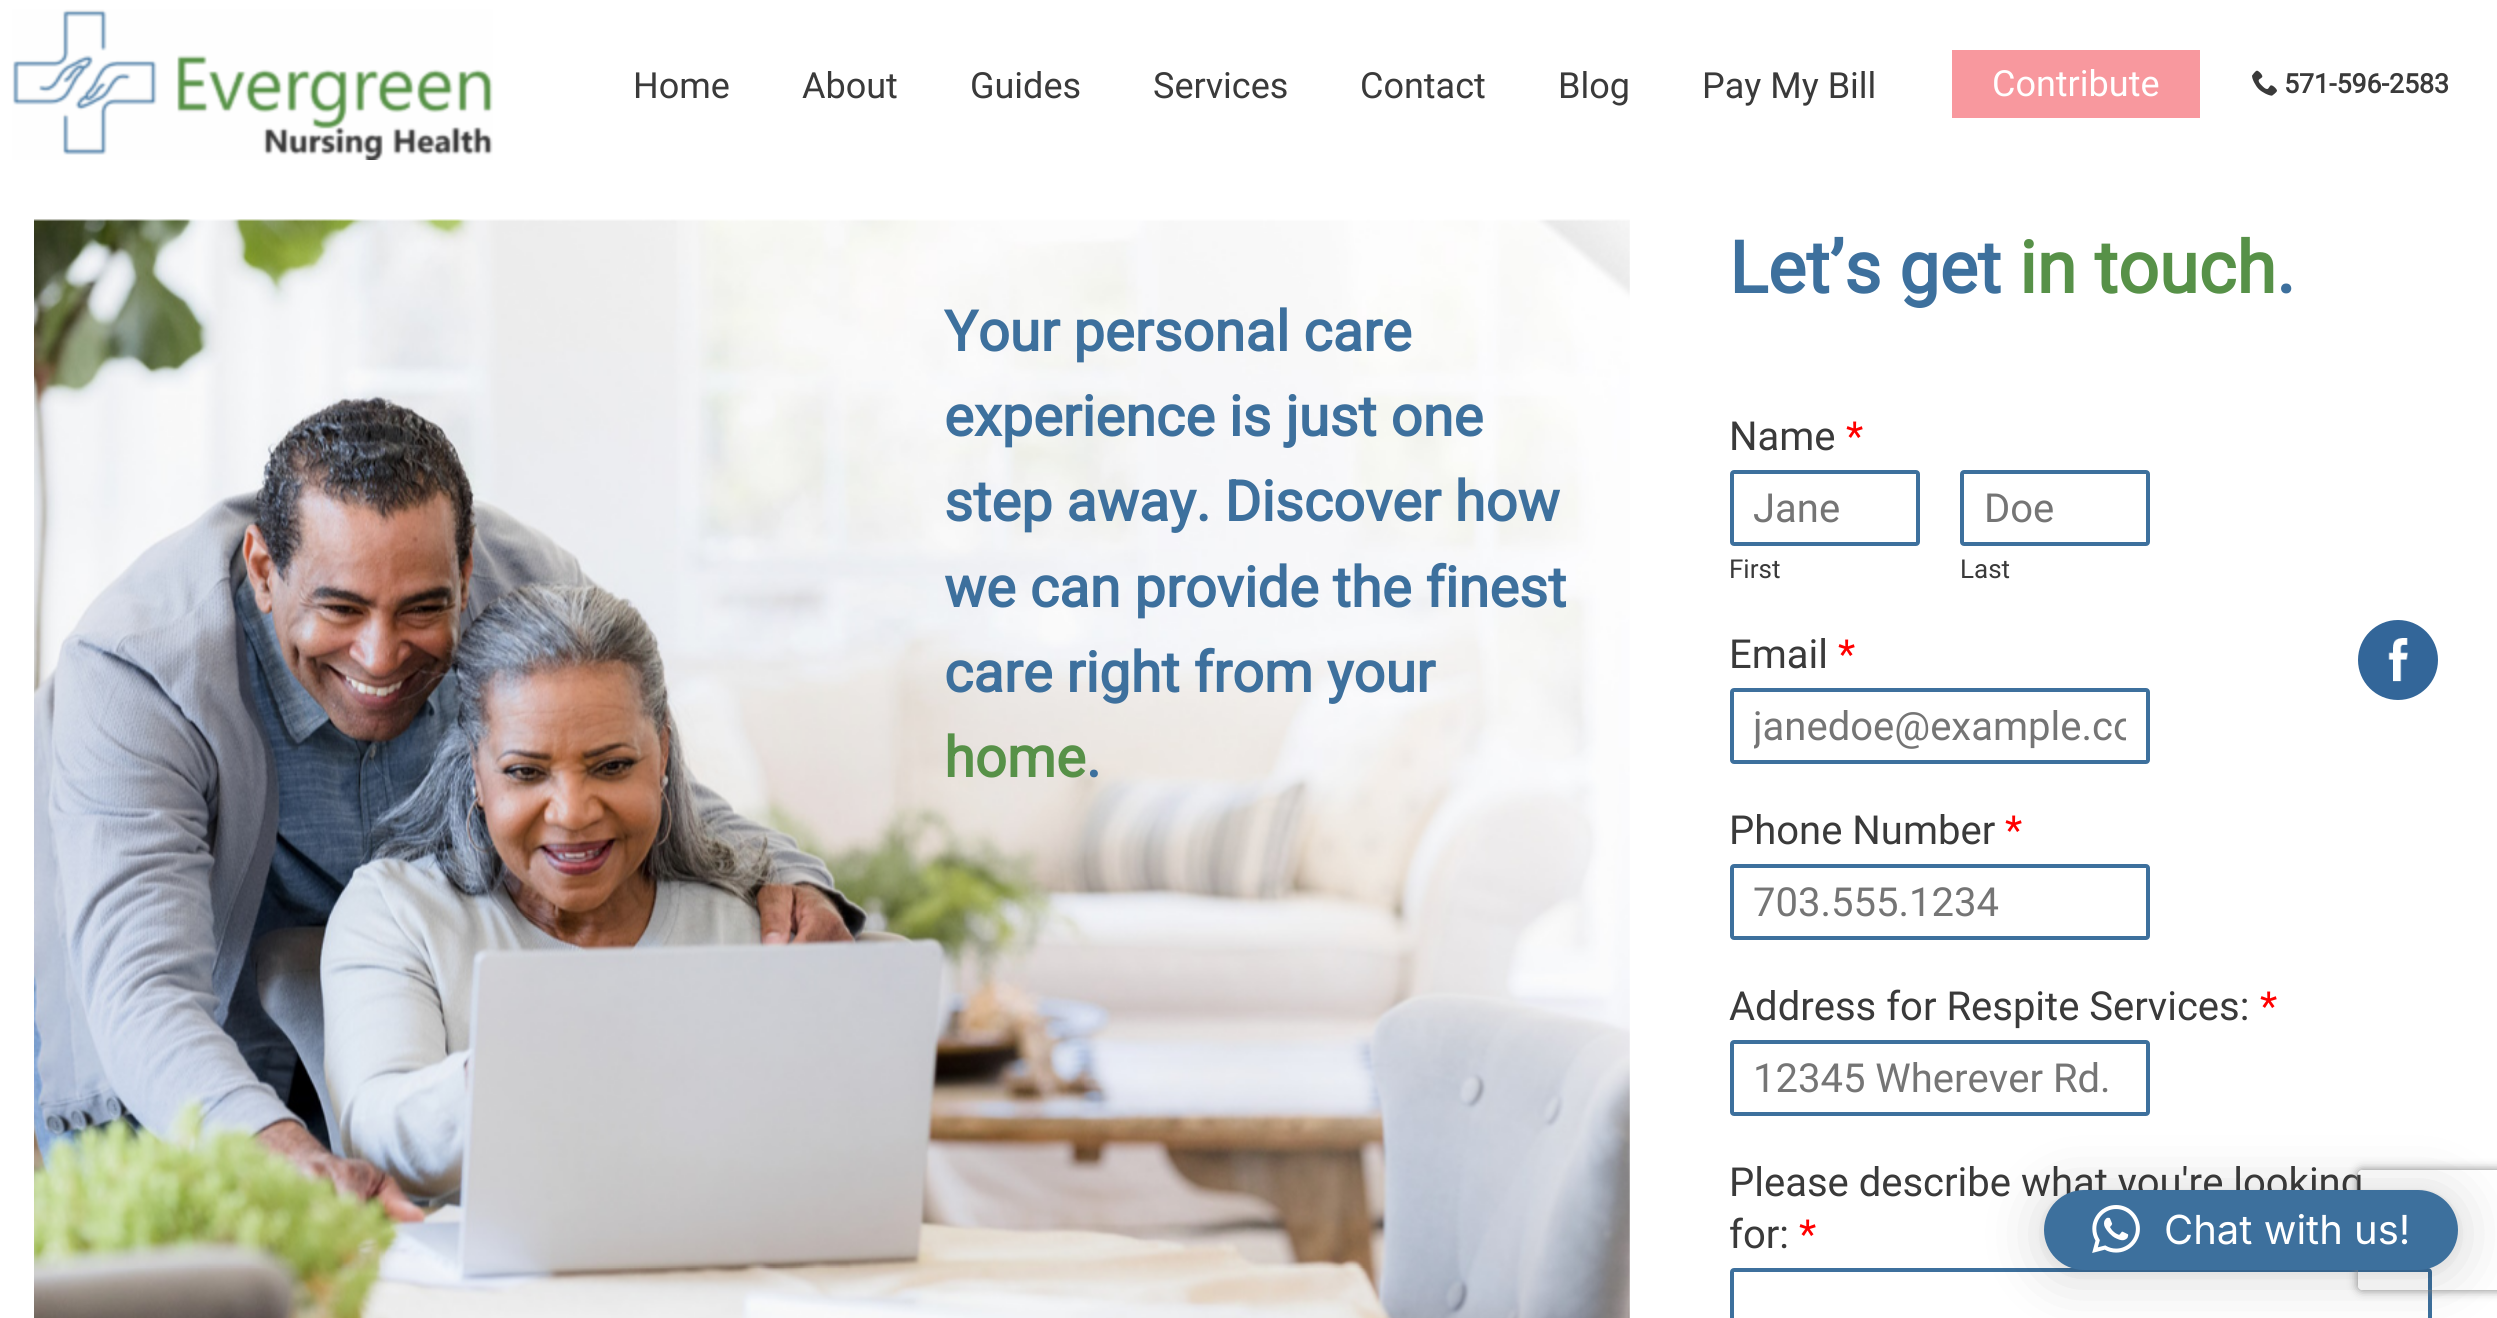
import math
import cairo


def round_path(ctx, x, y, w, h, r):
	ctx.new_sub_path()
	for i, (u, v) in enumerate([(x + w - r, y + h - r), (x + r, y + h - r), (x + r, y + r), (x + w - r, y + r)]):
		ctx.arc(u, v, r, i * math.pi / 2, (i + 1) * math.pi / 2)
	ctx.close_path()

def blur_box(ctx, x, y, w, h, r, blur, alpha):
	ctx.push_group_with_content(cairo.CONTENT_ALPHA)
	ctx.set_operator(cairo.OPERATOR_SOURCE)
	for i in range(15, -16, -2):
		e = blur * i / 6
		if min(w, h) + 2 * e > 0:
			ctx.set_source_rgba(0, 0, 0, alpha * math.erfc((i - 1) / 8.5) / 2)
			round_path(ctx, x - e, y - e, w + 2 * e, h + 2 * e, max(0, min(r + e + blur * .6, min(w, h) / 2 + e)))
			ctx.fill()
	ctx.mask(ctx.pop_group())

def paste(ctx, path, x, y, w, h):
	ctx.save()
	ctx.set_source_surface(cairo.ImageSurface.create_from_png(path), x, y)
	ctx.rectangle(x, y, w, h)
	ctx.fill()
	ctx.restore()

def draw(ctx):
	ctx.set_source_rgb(1, 1, 1)
	ctx.paint()
	paste(ctx, 'media/1.png', 12, 9, 481, 151)
	ctx.select_font_face('Roboto')
	ctx.set_font_size(36)
	ctx.set_source_rgb(0.227, 0.227, 0.227)
	for x, y, s in [
		(633, 98, 'Home'),
		(802, 98, 'About'),
		(970, 98, 'Guides'),
		(1153, 98, 'Services'),
		(1360, 98, 'Contact'),
		(1558, 98, 'Blog'),
		(1702, 98, 'Pay My Bill'),
	]:
		ctx.move_to(x, y)
		ctx.show_text(s)
	ctx.set_source_rgb(0.969, 0.596, 0.62)
	ctx.rectangle(1952, 50, 248, 68)
	ctx.fill()
	ctx.set_source_rgb(1, 1, 1)
	ctx.move_to(1992, 96)
	ctx.show_text('Contribute')
	paste(ctx, 'media/2.png', 2252, 70, 25, 26)
	ctx.select_font_face('Roboto', cairo.FONT_SLANT_NORMAL, cairo.FONT_WEIGHT_BOLD)
	ctx.set_font_size(26.75)
	ctx.set_source_rgb(0.227, 0.227, 0.227)
	ctx.move_to(2284, 93)
	ctx.show_text('571-596-2583')
	paste(ctx, 'media/3.png', 34, 219, 1596, 1099)
	ctx.set_font_size(56)
	ctx.set_source_rgb(0.239, 0.439, 0.616)
	for x, y, s in [
		(944, 351, 'Your personal care'),
		(944, 436, 'experience is just one'),
		(944, 521, 'step away. Discover how'),
		(944, 607, 'we can provide the finest'),
		(944, 692, 'care right from your'),
	]:
		ctx.move_to(x, y)
		ctx.show_text(s)
	ctx.set_source_rgb(0.341, 0.569, 0.282)
	ctx.move_to(944, 777)
	ctx.show_text('home')
	ctx.set_source_rgb(0.239, 0.439, 0.616)
	ctx.move_to(1086, 777)
	ctx.show_text('.')
	ctx.set_font_size(72)
	ctx.move_to(1729, 293)
	ctx.show_text('Let’s get')
	ctx.set_source_rgb(0.341, 0.569, 0.282)
	ctx.move_to(2019, 293)
	ctx.show_text('in touch')
	ctx.set_source_rgb(0.239, 0.439, 0.616)
	ctx.move_to(2276, 293)
	ctx.show_text('.')
	ctx.select_font_face('Roboto')
	ctx.set_font_size(40)
	ctx.set_source_rgb(0.227, 0.227, 0.227)
	ctx.move_to(1729, 450)
	ctx.show_text('Name')
	ctx.set_source_rgb(1, 0, 0)
	ctx.move_to(1846, 450)
	ctx.show_text('*')
	round_path(ctx, 1732, 472, 186, 72, 2)
	ctx.set_source_rgb(0.239, 0.439, 0.616)
	ctx.set_line_width(4)
	ctx.stroke()
	ctx.set_source_rgb(0.459, 0.459, 0.459)
	ctx.move_to(1753, 522)
	ctx.show_text('Jane')
	ctx.set_font_size(26)
	ctx.set_source_rgb(0.227, 0.227, 0.227)
	ctx.move_to(1729, 578)
	ctx.show_text('First')
	round_path(ctx, 1962, 472, 186, 72, 2)
	ctx.set_source_rgb(0.239, 0.439, 0.616)
	ctx.stroke()
	ctx.set_font_size(40)
	ctx.set_source_rgb(0.459, 0.459, 0.459)
	ctx.move_to(1984, 522)
	ctx.show_text('Doe')
	ctx.set_font_size(26)
	ctx.set_source_rgb(0.227, 0.227, 0.227)
	ctx.move_to(1960, 578)
	ctx.show_text('Last')
	ctx.set_font_size(40)
	ctx.move_to(1729, 668)
	ctx.show_text('Email')
	ctx.set_source_rgb(1, 0, 0)
	ctx.move_to(1838, 668)
	ctx.show_text('*')
	round_path(ctx, 1732, 690, 416, 72, 2)
	ctx.set_source_rgb(0.239, 0.439, 0.616)
	ctx.stroke()
	ctx.save()
	ctx.rectangle(1754, 702, 372, 48)
	ctx.clip()
	ctx.set_source_rgb(0.459, 0.459, 0.459)
	ctx.move_to(1753, 740)
	ctx.show_text('janedoe@example.co')
	ctx.restore()
	ctx.set_source_rgb(0.227, 0.227, 0.227)
	ctx.move_to(1729, 844)
	ctx.show_text('Phone Number')
	ctx.set_source_rgb(1, 0, 0)
	ctx.move_to(2005, 844)
	ctx.show_text('*')
	round_path(ctx, 1732, 866, 416, 72, 2)
	ctx.set_source_rgb(0.239, 0.439, 0.616)
	ctx.stroke()
	ctx.set_source_rgb(0.459, 0.459, 0.459)
	ctx.move_to(1753, 916)
	ctx.show_text('703.555.1234')
	ctx.set_source_rgb(0.227, 0.227, 0.227)
	ctx.move_to(1729, 1020)
	ctx.show_text('Address for Respite Services:')
	ctx.set_source_rgb(1, 0, 0)
	ctx.move_to(2260, 1020)
	ctx.show_text('*')
	round_path(ctx, 1732, 1042, 416, 72, 2)
	ctx.set_source_rgb(0.239, 0.439, 0.616)
	ctx.stroke()
	ctx.set_source_rgb(0.459, 0.459, 0.459)
	ctx.move_to(1753, 1092)
	ctx.show_text('12345 Wherever Rd.')
	ctx.set_source_rgb(0.227, 0.227, 0.227)
	ctx.move_to(1729, 1196)
	ctx.show_text('Please describe what you\'re looking')
	ctx.move_to(1729, 1248)
	ctx.show_text('for:')
	ctx.set_source_rgb(1, 0, 0)
	ctx.move_to(1799, 1248)
	ctx.show_text('*')
	round_path(ctx, 1732, 1270, 698, 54, 2)
	ctx.set_source_rgb(0.239, 0.439, 0.616)
	ctx.stroke()
	ctx.set_source_rgb(0.2, 0.4, 0.6)
	ctx.arc(2398, 660, 40, 0, 2 * math.pi)
	ctx.fill()
	paste(ctx, 'media/4.png', 2388, 638, 21, 44)
	ctx.set_source_rgb(0, 0, 0)
	blur_box(ctx, 2044, 1194, 414, 80, 40, 32, 0.16)
	blur_box(ctx, 2044, 1192, 414, 80, 40, 6, 0.06)
	ctx.save()
	ctx.set_fill_rule(cairo.FILL_RULE_EVEN_ODD)
	ctx.new_path()
	ctx.move_to(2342, 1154)
	ctx.line_to(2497, 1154)
	ctx.line_to(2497, 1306)
	ctx.line_to(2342, 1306)
	ctx.close_path()
	ctx.move_to(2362, 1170)
	ctx.line_to(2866, 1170)
	ctx.curve_to(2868, 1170, 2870, 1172, 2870, 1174)
	ctx.line_to(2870, 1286)
	ctx.curve_to(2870, 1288, 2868, 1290, 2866, 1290)
	ctx.line_to(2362, 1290)
	ctx.curve_to(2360, 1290, 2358, 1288, 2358, 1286)
	ctx.line_to(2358, 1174)
	ctx.curve_to(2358, 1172, 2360, 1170, 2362, 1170)
	ctx.close_path()
	ctx.clip()
	ctx.set_source_rgb(0.502, 0.502, 0.502)
	blur_box(ctx, 2358, 1170, 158, 120, 4, 5, 1)
	ctx.restore()
	ctx.set_source_rgb(0.239, 0.439, 0.616)
	round_path(ctx, 2044, 1190, 414, 80, 40)
	ctx.fill()
	paste(ctx, 'media/5.png', 2092, 1205, 48, 48)
	ctx.select_font_face('Inter')
	ctx.set_source_rgb(1, 1, 1)
	ctx.move_to(2164, 1244)
	ctx.show_text('Chat with us!')


surface = cairo.ImageSurface(cairo.FORMAT_RGB24, 2497, 1318)
ctx = cairo.Context(surface)
options = cairo.FontOptions()
options.set_hint_metrics(cairo.HINT_METRICS_OFF)
options.set_hint_style(cairo.HINT_STYLE_NONE)
ctx.set_font_options(options)
ctx.set_miter_limit(4)
draw(ctx)
surface.write_to_png('image.png')
